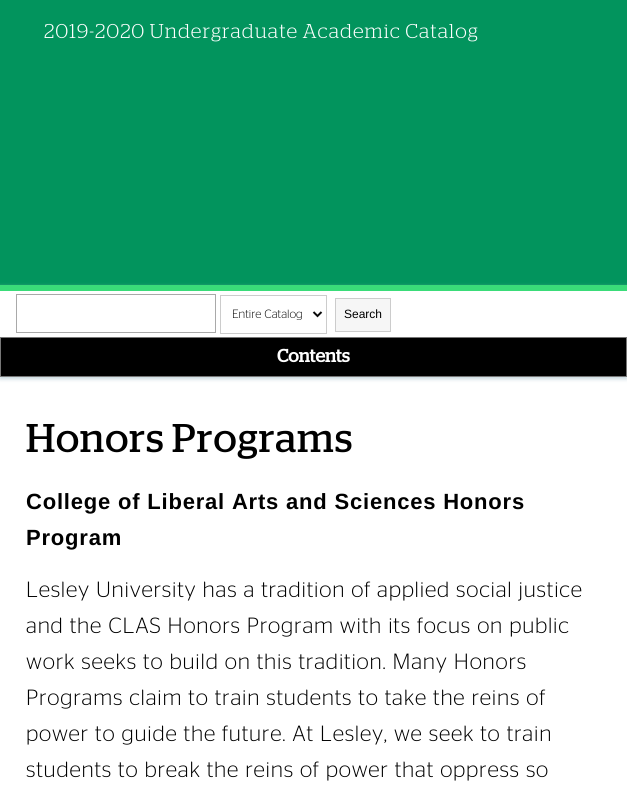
import math
import cairo


def write_spaced(ctx, x, y, s, letter, word):
	ctx.move_to(x, y)
	for ch in s:
		ctx.show_text(ch)
		ctx.rel_move_to(letter + word * (ch == ' '), 0)

def round_path(ctx, x, y, w, h, r):
	ctx.new_sub_path()
	for i, (u, v) in enumerate([(x + w - r, y + h - r), (x + r, y + h - r), (x + r, y + r), (x + w - r, y + r)]):
		ctx.arc(u, v, r, i * math.pi / 2, (i + 1) * math.pi / 2)
	ctx.close_path()

def blur_box(ctx, x, y, w, h, r, blur, alpha):
	ctx.push_group_with_content(cairo.CONTENT_ALPHA)
	ctx.set_operator(cairo.OPERATOR_SOURCE)
	for i in range(15, -16, -2):
		e = blur * i / 6
		if min(w, h) + 2 * e > 0:
			ctx.set_source_rgba(0, 0, 0, alpha * math.erfc((i - 1) / 8.5) / 2)
			round_path(ctx, x - e, y - e, w + 2 * e, h + 2 * e, max(0, min(r + e + blur * .6, min(w, h) / 2 + e)))
			ctx.fill()
	ctx.mask(ctx.pop_group())

def draw(ctx):
	ctx.set_source_rgb(1, 1, 1)
	ctx.paint()
	ctx.set_source_rgb(0.008, 0.58, 0.365)
	ctx.rectangle(0, 0, 627, 285)
	ctx.fill()
	ctx.select_font_face('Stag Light')
	ctx.set_font_size(20)
	ctx.set_source_rgb(1, 1, 1)
	write_spaced(ctx, 44, 38, '2019-2020 Undergraduate Academic Catalog', 1, 0)
	ctx.save()
	ctx.set_fill_rule(cairo.FILL_RULE_EVEN_ODD)
	ctx.new_path()
	ctx.move_to(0, 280)
	ctx.line_to(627, 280)
	ctx.line_to(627, 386)
	ctx.line_to(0, 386)
	ctx.close_path()
	ctx.move_to(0, 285)
	ctx.line_to(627, 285)
	ctx.line_to(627, 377)
	ctx.line_to(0, 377)
	ctx.close_path()
	ctx.clip()
	ctx.set_source_rgb(0.706, 0.792, 0.827)
	blur_box(ctx, 0, 287, 627, 92, 0, 2, 0.78)
	ctx.restore()
	ctx.set_source_rgb(0.227, 0.863, 0.475)
	ctx.rectangle(0, 285, 627, 6)
	ctx.fill()
	ctx.rectangle(16.5, 294.5, 199, 38)
	ctx.set_source_rgb(0.663, 0.663, 0.663)
	ctx.set_line_width(1)
	ctx.stroke()
	ctx.rectangle(220.5, 295.5, 106, 38)
	ctx.set_source_rgb(0.8, 0.8, 0.8)
	ctx.stroke()
	ctx.new_path()
	ctx.move_to(313.5, 312)
	ctx.line_to(317.5, 316)
	ctx.line_to(321.5, 312)
	ctx.set_source_rgb(0.039, 0.039, 0.039)
	ctx.set_line_width(2)
	ctx.stroke()
	ctx.select_font_face('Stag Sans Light')
	ctx.set_font_size(12)
	ctx.move_to(232, 318)
	ctx.show_text('Entire Catalog')
	ctx.set_source_rgb(0.961, 0.961, 0.961)
	ctx.rectangle(335.5, 298.5, 55, 33)
	ctx.fill_preserve()
	ctx.set_source_rgb(0.8, 0.8, 0.8)
	ctx.set_line_width(1)
	ctx.stroke()
	ctx.select_font_face('Liberation Sans')
	ctx.set_source_rgb(0, 0, 0)
	ctx.move_to(344, 318)
	ctx.show_text('Search')
	ctx.rectangle(0.5, 337.5, 626, 39)
	ctx.fill_preserve()
	ctx.set_source_rgb(0.467, 0.467, 0.467)
	ctx.stroke()
	ctx.select_font_face('Stag', cairo.FONT_SLANT_NORMAL, cairo.FONT_WEIGHT_BOLD)
	ctx.set_font_size(18)
	ctx.set_source_rgb(1, 1, 1)
	ctx.move_to(277, 362)
	ctx.show_text('Contents')
	ctx.select_font_face('Stag')
	ctx.set_font_size(40)
	ctx.set_source_rgb(0, 0, 0)
	write_spaced(ctx, 26, 452, 'Honors Programs', 1, 0)
	ctx.select_font_face('Liberation Sans', cairo.FONT_SLANT_NORMAL, cairo.FONT_WEIGHT_BOLD)
	ctx.set_font_size(22)
	write_spaced(ctx, 26, 509, 'College of Liberal Arts and Sciences Honors', 0.8, 0)
	write_spaced(ctx, 26, 545, 'Program', 0.8, 0)
	ctx.select_font_face('Stag Sans Light')
	for x, y, s in [
		(26, 597, 'Lesley University has a tradition of applied social justice'),
		(26, 633, 'and the CLAS Honors Program with its focus on public'),
		(26, 669, 'work seeks to build on this tradition. Many Honors'),
		(26, 705, 'Programs claim to train students to take the reins of'),
		(26, 741, 'power to guide the future. At Lesley, we seek to train'),
		(26, 777, 'students to break the reins of power that oppress so'),
	]:
		write_spaced(ctx, x, y, s, 0.8, 0)


surface = cairo.ImageSurface(cairo.FORMAT_RGB24, 627, 803)
ctx = cairo.Context(surface)
options = cairo.FontOptions()
options.set_hint_metrics(cairo.HINT_METRICS_OFF)
options.set_hint_style(cairo.HINT_STYLE_NONE)
ctx.set_font_options(options)
ctx.set_miter_limit(4)
draw(ctx)
surface.write_to_png('image.png')
